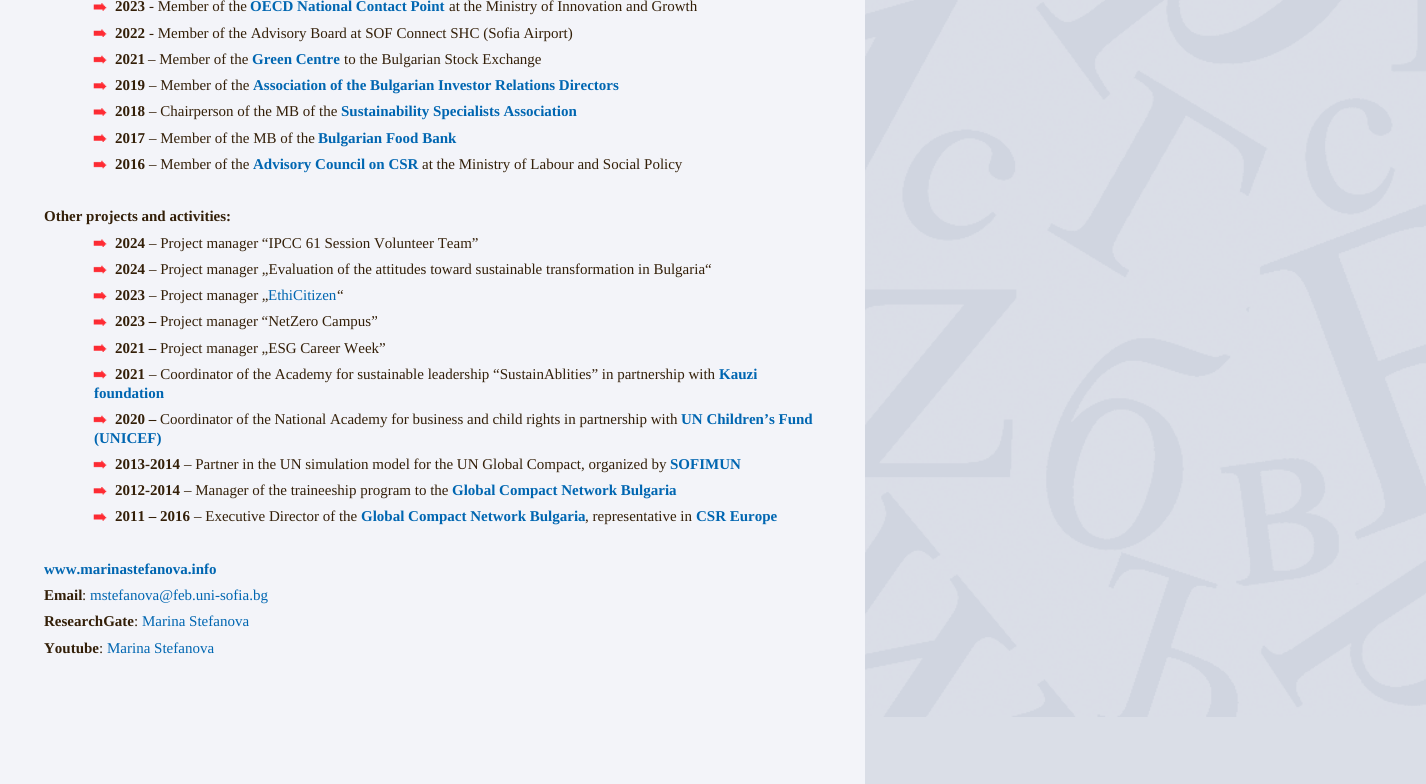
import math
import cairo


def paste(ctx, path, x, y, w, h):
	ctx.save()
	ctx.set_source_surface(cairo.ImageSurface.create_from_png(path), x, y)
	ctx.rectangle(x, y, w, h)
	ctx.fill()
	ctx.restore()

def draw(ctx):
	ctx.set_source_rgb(0.855, 0.871, 0.906)
	ctx.paint()
	paste(ctx, 'media/1.png', 865, 0, 561, 717)
	gradient = cairo.LinearGradient(432, -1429, 433, 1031)
	gradient.add_color_stop_rgba(0.02, 0.976, 0.98, 1, 1)
	gradient.add_color_stop_rgba(0.03, 0.953, 0.957, 0.976, 1)
	ctx.set_source(gradient)
	ctx.rectangle(0, 0, 865, 784)
	ctx.fill()
	paste(ctx, 'media/2.png', 93, 3, 14, 8)
	ctx.select_font_face('Liberation Serif', cairo.FONT_SLANT_NORMAL, cairo.FONT_WEIGHT_BOLD)
	ctx.set_font_size(15)
	ctx.set_source_rgb(0.2, 0.122, 0.035)
	ctx.move_to(115, 11)
	ctx.show_text('2023')
	ctx.select_font_face('Liberation Serif')
	ctx.move_to(149, 11)
	ctx.show_text('- Member of the')
	ctx.select_font_face('Liberation Serif', cairo.FONT_SLANT_NORMAL, cairo.FONT_WEIGHT_BOLD)
	ctx.set_source_rgb(0, 0.4, 0.694)
	ctx.move_to(250, 11)
	ctx.show_text('OECD National Contact Point')
	ctx.select_font_face('Liberation Serif')
	ctx.set_source_rgb(0.2, 0.122, 0.035)
	ctx.move_to(449, 11)
	ctx.show_text('at the Ministry of Innovation and Growth')
	paste(ctx, 'media/3.png', 93, 29, 14, 8)
	ctx.select_font_face('Liberation Serif', cairo.FONT_SLANT_NORMAL, cairo.FONT_WEIGHT_BOLD)
	ctx.move_to(115, 38)
	ctx.show_text('2022')
	ctx.select_font_face('Liberation Serif')
	ctx.move_to(149, 38)
	ctx.show_text('- Member of the Advisory Board at SOF Connect SHC (Sofia Airport)')
	paste(ctx, 'media/4.png', 93, 55, 14, 9)
	ctx.select_font_face('Liberation Serif', cairo.FONT_SLANT_NORMAL, cairo.FONT_WEIGHT_BOLD)
	ctx.move_to(115, 64)
	ctx.show_text('2021')
	ctx.select_font_face('Liberation Serif')
	ctx.move_to(148, 64)
	ctx.show_text('– Member of the')
	ctx.select_font_face('Liberation Serif', cairo.FONT_SLANT_NORMAL, cairo.FONT_WEIGHT_BOLD)
	ctx.set_source_rgb(0, 0.4, 0.694)
	ctx.move_to(252, 64)
	ctx.show_text('Green Centre')
	ctx.select_font_face('Liberation Serif')
	ctx.set_source_rgb(0.2, 0.122, 0.035)
	ctx.move_to(344, 64)
	ctx.show_text('to the Bulgarian Stock Exchange')
	paste(ctx, 'media/5.png', 93, 82, 14, 8)
	ctx.select_font_face('Liberation Serif', cairo.FONT_SLANT_NORMAL, cairo.FONT_WEIGHT_BOLD)
	ctx.move_to(115, 90)
	ctx.show_text('2019')
	ctx.select_font_face('Liberation Serif')
	ctx.move_to(149, 90)
	ctx.show_text('– Member of the')
	ctx.select_font_face('Liberation Serif', cairo.FONT_SLANT_NORMAL, cairo.FONT_WEIGHT_BOLD)
	ctx.set_source_rgb(0, 0.4, 0.694)
	ctx.move_to(253, 90)
	ctx.show_text('Association of the Bulgarian Investor Relations Directors')
	paste(ctx, 'media/2.png', 93, 108, 14, 8)
	ctx.set_source_rgb(0.2, 0.122, 0.035)
	ctx.move_to(115, 116)
	ctx.show_text('2018')
	ctx.select_font_face('Liberation Serif')
	ctx.move_to(149, 116)
	ctx.show_text('– Chairperson of the MB of the')
	ctx.select_font_face('Liberation Serif', cairo.FONT_SLANT_NORMAL, cairo.FONT_WEIGHT_BOLD)
	ctx.set_source_rgb(0, 0.4, 0.694)
	ctx.move_to(341, 116)
	ctx.show_text('Sustainability Specialists Association')
	paste(ctx, 'media/3.png', 93, 134, 14, 8)
	ctx.set_source_rgb(0.2, 0.122, 0.035)
	ctx.move_to(115, 143)
	ctx.show_text('2017')
	ctx.select_font_face('Liberation Serif')
	ctx.move_to(149, 143)
	ctx.show_text('– Member of the MB of the')
	ctx.select_font_face('Liberation Serif', cairo.FONT_SLANT_NORMAL, cairo.FONT_WEIGHT_BOLD)
	ctx.set_source_rgb(0, 0.4, 0.694)
	ctx.move_to(318, 143)
	ctx.show_text('Bulgarian Food Bank')
	paste(ctx, 'media/4.png', 93, 160, 14, 9)
	ctx.set_source_rgb(0.2, 0.122, 0.035)
	ctx.move_to(115, 169)
	ctx.show_text('2016')
	ctx.select_font_face('Liberation Serif')
	ctx.move_to(149, 169)
	ctx.show_text('– Member of the')
	ctx.select_font_face('Liberation Serif', cairo.FONT_SLANT_NORMAL, cairo.FONT_WEIGHT_BOLD)
	ctx.set_source_rgb(0, 0.4, 0.694)
	ctx.move_to(253, 169)
	ctx.show_text('Advisory Council on CSR')
	ctx.select_font_face('Liberation Serif')
	ctx.set_source_rgb(0.2, 0.122, 0.035)
	ctx.move_to(422, 169)
	ctx.show_text('at the Ministry of Labour and Social Policy')
	ctx.select_font_face('Liberation Serif', cairo.FONT_SLANT_NORMAL, cairo.FONT_WEIGHT_BOLD)
	ctx.move_to(44, 221)
	ctx.show_text('Other projects and activities:')
	paste(ctx, 'media/3.png', 93, 239, 14, 8)
	ctx.move_to(115, 248)
	ctx.show_text('2024')
	ctx.select_font_face('Liberation Serif')
	ctx.move_to(149, 248)
	ctx.show_text('– Project manager “IPCC 61 Session Volunteer Team”')
	paste(ctx, 'media/4.png', 93, 265, 14, 9)
	ctx.select_font_face('Liberation Serif', cairo.FONT_SLANT_NORMAL, cairo.FONT_WEIGHT_BOLD)
	ctx.move_to(115, 274)
	ctx.show_text('2024')
	ctx.select_font_face('Liberation Serif')
	ctx.move_to(149, 274)
	ctx.show_text('– Project manager „Evaluation of the attitudes toward sustainable transformation in Bulgaria“')
	paste(ctx, 'media/5.png', 93, 292, 14, 8)
	ctx.select_font_face('Liberation Serif', cairo.FONT_SLANT_NORMAL, cairo.FONT_WEIGHT_BOLD)
	ctx.move_to(115, 300)
	ctx.show_text('2023')
	ctx.select_font_face('Liberation Serif')
	ctx.move_to(149, 300)
	ctx.show_text('– Project manager „')
	ctx.set_source_rgb(0, 0.4, 0.694)
	ctx.move_to(268, 300)
	ctx.show_text('EthiCitizen')
	ctx.set_source_rgb(0.2, 0.122, 0.035)
	ctx.move_to(337, 300)
	ctx.show_text('“')
	paste(ctx, 'media/2.png', 93, 318, 14, 8)
	ctx.select_font_face('Liberation Serif', cairo.FONT_SLANT_NORMAL, cairo.FONT_WEIGHT_BOLD)
	ctx.move_to(115, 326)
	ctx.show_text('2023 –')
	ctx.select_font_face('Liberation Serif')
	ctx.move_to(160, 326)
	ctx.show_text('Project manager “NetZero Campus”')
	paste(ctx, 'media/3.png', 93, 344, 14, 8)
	ctx.select_font_face('Liberation Serif', cairo.FONT_SLANT_NORMAL, cairo.FONT_WEIGHT_BOLD)
	ctx.move_to(115, 353)
	ctx.show_text('2021 –')
	ctx.select_font_face('Liberation Serif')
	ctx.move_to(160, 353)
	ctx.show_text('Project manager „ESG Career Week”')
	paste(ctx, 'media/4.png', 93, 370, 14, 9)
	ctx.select_font_face('Liberation Serif', cairo.FONT_SLANT_NORMAL, cairo.FONT_WEIGHT_BOLD)
	ctx.move_to(115, 379)
	ctx.show_text('2021')
	ctx.select_font_face('Liberation Serif')
	ctx.move_to(149, 379)
	ctx.show_text('– Coordinator of the Academy for sustainable leadership “SustainAblities” in partnership with')
	ctx.select_font_face('Liberation Serif', cairo.FONT_SLANT_NORMAL, cairo.FONT_WEIGHT_BOLD)
	ctx.set_source_rgb(0, 0.4, 0.694)
	ctx.move_to(719, 379)
	ctx.show_text('Kauzi')
	ctx.move_to(94, 398)
	ctx.show_text('foundation')
	paste(ctx, 'media/4.png', 93, 415, 14, 9)
	ctx.set_source_rgb(0.2, 0.122, 0.035)
	ctx.move_to(115, 424)
	ctx.show_text('2020 –')
	ctx.select_font_face('Liberation Serif')
	ctx.move_to(160, 424)
	ctx.show_text('Coordinator of the National Academy for business and child rights in partnership with')
	ctx.select_font_face('Liberation Serif', cairo.FONT_SLANT_NORMAL, cairo.FONT_WEIGHT_BOLD)
	ctx.set_source_rgb(0, 0.4, 0.694)
	ctx.move_to(681, 424)
	ctx.show_text('UN Children’s Fund')
	ctx.move_to(94, 443)
	ctx.show_text('(UNICEF)')
	paste(ctx, 'media/4.png', 93, 460, 14, 9)
	ctx.set_source_rgb(0.2, 0.122, 0.035)
	ctx.move_to(115, 469)
	ctx.show_text('2013-2014')
	ctx.select_font_face('Liberation Serif')
	ctx.move_to(184, 469)
	ctx.show_text('– Partner in the UN simulation model for the UN Global Compact, organized by')
	ctx.select_font_face('Liberation Serif', cairo.FONT_SLANT_NORMAL, cairo.FONT_WEIGHT_BOLD)
	ctx.set_source_rgb(0, 0.4, 0.694)
	ctx.move_to(670, 469)
	ctx.show_text('SOFIMUN')
	paste(ctx, 'media/5.png', 93, 487, 14, 8)
	ctx.set_source_rgb(0.2, 0.122, 0.035)
	ctx.move_to(115, 495)
	ctx.show_text('2012-2014')
	ctx.select_font_face('Liberation Serif')
	ctx.move_to(184, 495)
	ctx.show_text('– Manager of the traineeship program to the')
	ctx.select_font_face('Liberation Serif', cairo.FONT_SLANT_NORMAL, cairo.FONT_WEIGHT_BOLD)
	ctx.set_source_rgb(0, 0.4, 0.694)
	ctx.move_to(452, 495)
	ctx.show_text('Global Compact Network Bulgaria')
	paste(ctx, 'media/2.png', 93, 513, 14, 8)
	ctx.set_source_rgb(0.2, 0.122, 0.035)
	ctx.move_to(115, 521)
	ctx.show_text('2011 – 2016')
	ctx.select_font_face('Liberation Serif')
	ctx.move_to(194, 521)
	ctx.show_text('– Executive Director of the')
	ctx.select_font_face('Liberation Serif', cairo.FONT_SLANT_NORMAL, cairo.FONT_WEIGHT_BOLD)
	ctx.set_source_rgb(0, 0.4, 0.694)
	ctx.move_to(361, 521)
	ctx.show_text('Global Compact Network Bulgaria')
	ctx.select_font_face('Liberation Serif')
	ctx.set_source_rgb(0.2, 0.122, 0.035)
	ctx.move_to(585, 521)
	ctx.show_text(', representative in')
	ctx.select_font_face('Liberation Serif', cairo.FONT_SLANT_NORMAL, cairo.FONT_WEIGHT_BOLD)
	ctx.set_source_rgb(0, 0.4, 0.694)
	ctx.move_to(696, 521)
	ctx.show_text('CSR Europe')
	ctx.move_to(44, 574)
	ctx.show_text('www.marinastefanova.info')
	ctx.set_source_rgb(0.2, 0.122, 0.035)
	ctx.move_to(44, 600)
	ctx.show_text('Еmail')
	ctx.select_font_face('Liberation Serif')
	ctx.move_to(82, 600)
	ctx.show_text(':')
	ctx.set_source_rgb(0, 0.4, 0.694)
	ctx.move_to(90, 600)
	ctx.show_text('mstefanova@feb.uni-sofia.bg')
	ctx.select_font_face('Liberation Serif', cairo.FONT_SLANT_NORMAL, cairo.FONT_WEIGHT_BOLD)
	ctx.set_source_rgb(0.2, 0.122, 0.035)
	ctx.move_to(44, 626)
	ctx.show_text('ResearchGate')
	ctx.select_font_face('Liberation Serif')
	ctx.move_to(134, 626)
	ctx.show_text(':')
	ctx.set_source_rgb(0, 0.4, 0.694)
	ctx.move_to(142, 626)
	ctx.show_text('Marina Stefanova')
	ctx.select_font_face('Liberation Serif', cairo.FONT_SLANT_NORMAL, cairo.FONT_WEIGHT_BOLD)
	ctx.set_source_rgb(0.2, 0.122, 0.035)
	ctx.move_to(44, 653)
	ctx.show_text('Youtube')
	ctx.select_font_face('Liberation Serif')
	ctx.move_to(99, 653)
	ctx.show_text(':')
	ctx.set_source_rgb(0, 0.4, 0.694)
	ctx.move_to(107, 653)
	ctx.show_text('Marina Stefanova')


surface = cairo.ImageSurface(cairo.FORMAT_RGB24, 1426, 784)
ctx = cairo.Context(surface)
options = cairo.FontOptions()
options.set_hint_metrics(cairo.HINT_METRICS_OFF)
options.set_hint_style(cairo.HINT_STYLE_NONE)
ctx.set_font_options(options)
ctx.set_miter_limit(4)
draw(ctx)
surface.write_to_png('image.png')
